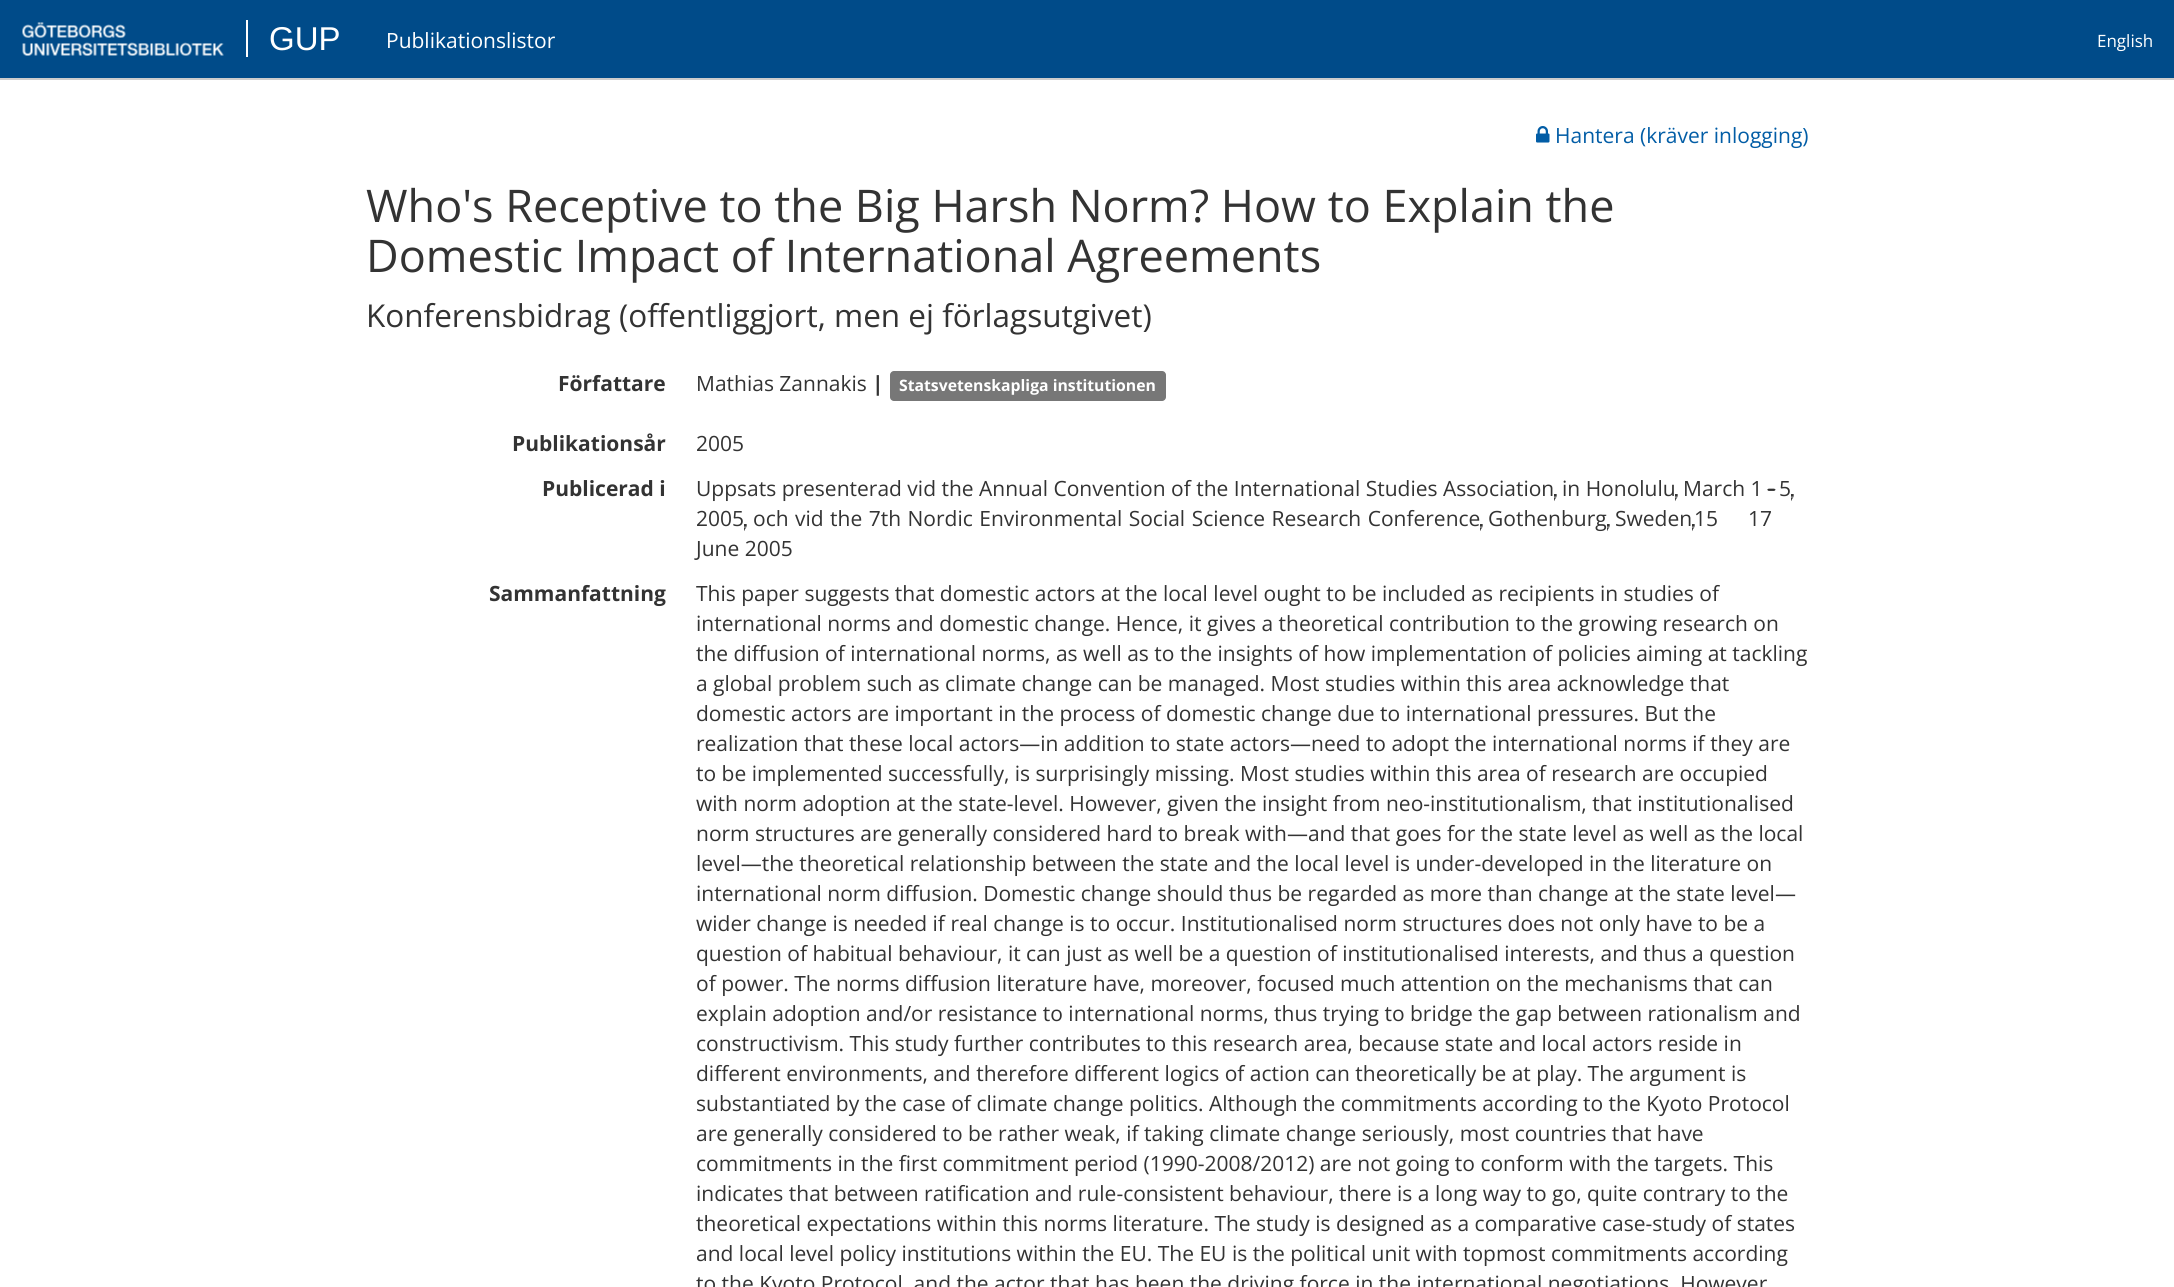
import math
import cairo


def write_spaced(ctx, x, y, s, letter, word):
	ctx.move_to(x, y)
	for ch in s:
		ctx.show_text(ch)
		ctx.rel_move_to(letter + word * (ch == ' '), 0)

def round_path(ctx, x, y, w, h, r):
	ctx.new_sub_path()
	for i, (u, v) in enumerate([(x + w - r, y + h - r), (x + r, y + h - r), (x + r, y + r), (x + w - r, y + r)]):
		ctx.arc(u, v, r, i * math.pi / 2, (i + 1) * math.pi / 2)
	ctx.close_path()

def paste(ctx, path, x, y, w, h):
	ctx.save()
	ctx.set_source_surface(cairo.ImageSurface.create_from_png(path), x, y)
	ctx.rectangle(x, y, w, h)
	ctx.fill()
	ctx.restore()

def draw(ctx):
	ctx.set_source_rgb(1, 1, 1)
	ctx.paint()
	ctx.set_source_rgb(0, 0.294, 0.537)
	ctx.rectangle(0, 0, 2174, 78)
	ctx.fill()
	ctx.set_source_rgb(0.8, 0.8, 0.8)
	ctx.rectangle(0, 78, 2174, 2)
	ctx.fill()
	paste(ctx, 'media/1.png', 22, 22, 202, 34)
	ctx.set_source_rgb(1, 1, 1)
	ctx.rectangle(246, 20, 2, 37)
	ctx.fill()
	ctx.select_font_face('Liberation Sans')
	ctx.set_font_size(33)
	ctx.move_to(269, 50)
	ctx.show_text('GUP')
	ctx.select_font_face('Open Sans')
	ctx.set_font_size(21)
	ctx.move_to(386, 48)
	ctx.show_text('Publikationslistor')
	ctx.set_font_size(17)
	ctx.move_to(2097, 47)
	ctx.show_text('English')
	paste(ctx, 'media/2.png', 1536, 126, 14, 17)
	ctx.set_font_size(21)
	ctx.set_source_rgb(0.008, 0.365, 0.651)
	ctx.move_to(1555, 143)
	ctx.show_text('Hantera (kräver inlogging)')
	ctx.set_font_size(45)
	ctx.set_source_rgb(0.2, 0.2, 0.2)
	ctx.move_to(366, 222)
	ctx.show_text('Who\'s Receptive to the Big Harsh Norm? How to Explain the')
	ctx.move_to(366, 272)
	ctx.show_text('Domestic Impact of International Agreements')
	ctx.set_font_size(31.5)
	ctx.move_to(366, 327)
	ctx.show_text('Konferensbidrag (offentliggjort, men ej förlagsutgivet)')
	ctx.select_font_face('Open Sans', cairo.FONT_SLANT_NORMAL, cairo.FONT_WEIGHT_BOLD)
	ctx.set_font_size(21)
	ctx.move_to(558, 391)
	ctx.show_text('Författare')
	ctx.select_font_face('Open Sans')
	ctx.move_to(696, 391)
	ctx.show_text('Mathias Zannakis')
	ctx.select_font_face('Open Sans', cairo.FONT_SLANT_NORMAL, cairo.FONT_WEIGHT_BOLD)
	ctx.move_to(872, 391)
	ctx.show_text('|')
	ctx.set_source_rgb(0.467, 0.467, 0.467)
	round_path(ctx, 890, 371, 276, 30, 4)
	ctx.fill()
	ctx.set_font_size(15.75)
	ctx.set_source_rgb(1, 1, 1)
	ctx.move_to(899, 391)
	ctx.show_text('Statsvetenskapliga institutionen')
	ctx.set_font_size(21)
	ctx.set_source_rgb(0.2, 0.2, 0.2)
	ctx.move_to(512, 451)
	ctx.show_text('Publikationsår')
	ctx.select_font_face('Open Sans')
	ctx.move_to(696, 451)
	ctx.show_text('2005')
	ctx.select_font_face('Open Sans', cairo.FONT_SLANT_NORMAL, cairo.FONT_WEIGHT_BOLD)
	ctx.move_to(542, 496)
	ctx.show_text('Publicerad i')
	ctx.select_font_face('Open Sans')
	for x, y, s in [
		(696, 496, 'Uppsats presenterad vid the Annual Convention of the International Studies Association'),
		(1562, 496, 'in Honolulu'),
		(1683, 496, 'March 1'),
	]:
		ctx.move_to(x, y)
		ctx.show_text(s)
	ctx.select_font_face('Digital Numbers')
	ctx.move_to(1763, 496)
	ctx.show_text('-')
	ctx.select_font_face('Open Sans')
	ctx.move_to(1779, 496)
	ctx.show_text('5')
	ctx.select_font_face('Digital Numbers')
	for x, y, s in [
		(1554, 496, ','),
		(1675, 496, ','),
		(1791, 496, ','),
	]:
		ctx.move_to(x, y)
		ctx.show_text(s)
	ctx.select_font_face('Open Sans')
	ctx.move_to(696, 526)
	ctx.show_text('2005')
	write_spaced(ctx, 753, 526, 'och vid the 7th Nordic Environmental Social Science Research Conference', 0, 1)
	for x, y, s in [
		(1488, 526, 'Gothenburg'),
		(1615, 526, 'Sweden'),
		(1694, 526, '15'),
		(1748, 526, '17'),
	]:
		ctx.move_to(x, y)
		ctx.show_text(s)
	ctx.select_font_face('Digital Numbers')
	for x, y, s in [
		(744, 526, ','),
		(1480, 526, ','),
		(1607, 526, ','),
		(1692, 526, ','),
	]:
		ctx.move_to(x, y)
		ctx.show_text(s)
	ctx.select_font_face('Open Sans')
	ctx.move_to(696, 556)
	ctx.show_text('June 2005')
	ctx.select_font_face('Open Sans', cairo.FONT_SLANT_NORMAL, cairo.FONT_WEIGHT_BOLD)
	ctx.move_to(489, 601)
	ctx.show_text('Sammanfattning')
	ctx.select_font_face('Open Sans')
	for x, y, s in [
		(696, 601, 'This paper suggests that domestic actors at the local level ought to be included as recipients in studies of'),
		(696, 631, 'international norms and domestic change. Hence, it gives a theoretical contribution to the growing research on'),
		(696, 661, 'the diffusion of international norms, as well as to the insights of how implementation of policies aiming at tackling'),
		(696, 691, 'a global problem such as climate change can be managed. Most studies within this area acknowledge that'),
		(696, 721, 'domestic actors are important in the process of domestic change due to international pressures. But the'),
		(696, 751, 'realization that these local actors—in addition to state actors—need to adopt the international norms if they are'),
		(696, 781, 'to be implemented successfully, is surprisingly missing. Most studies within this area of research are occupied'),
		(696, 811, 'with norm adoption at the state-level. However, given the insight from neo-institutionalism, that institutionalised'),
		(696, 841, 'norm structures are generally considered hard to break with—and that goes for the state level as well as the local'),
		(696, 871, 'level—the theoretical relationship between the state and the local level is under-developed in the literature on'),
		(696, 901, 'international norm diffusion. Domestic change should thus be regarded as more than change at the state level—'),
		(696, 931, 'wider change is needed if real change is to occur. Institutionalised norm structures does not only have to be a'),
		(696, 961, 'question of habitual behaviour, it can just as well be a question of institutionalised interests, and thus a question'),
		(696, 991, 'of power. The norms diffusion literature have, moreover, focused much attention on the mechanisms that can'),
		(696, 1021, 'explain adoption and/or resistance to international norms, thus trying to bridge the gap between rationalism and'),
		(696, 1051, 'constructivism. This study further contributes to this research area, because state and local actors reside in'),
		(696, 1081, 'different environments, and therefore different logics of action can theoretically be at play. The argument is'),
		(696, 1111, 'substantiated by the case of climate change politics. Although the commitments according to the Kyoto Protocol'),
		(696, 1141, 'are generally considered to be rather weak, if taking climate change seriously, most countries that have'),
		(696, 1171, 'commitments in the first commitment period (1990-2008/2012) are not going to conform with the targets. This'),
		(696, 1201, 'indicates that between ratification and rule-consistent behaviour, there is a long way to go, quite contrary to the'),
		(696, 1231, 'theoretical expectations within this norms literature. The study is designed as a comparative case-study of states'),
		(696, 1261, 'and local level policy institutions within the EU. The EU is the political unit with topmost commitments according'),
		(696, 1291, 'to the Kyoto Protocol, and the actor that has been the driving force in the international negotiations. However'),
	]:
		ctx.move_to(x, y)
		ctx.show_text(s)


surface = cairo.ImageSurface(cairo.FORMAT_RGB24, 2174, 1287)
ctx = cairo.Context(surface)
options = cairo.FontOptions()
options.set_hint_metrics(cairo.HINT_METRICS_OFF)
options.set_hint_style(cairo.HINT_STYLE_NONE)
ctx.set_font_options(options)
ctx.set_miter_limit(4)
draw(ctx)
surface.write_to_png('image.png')
